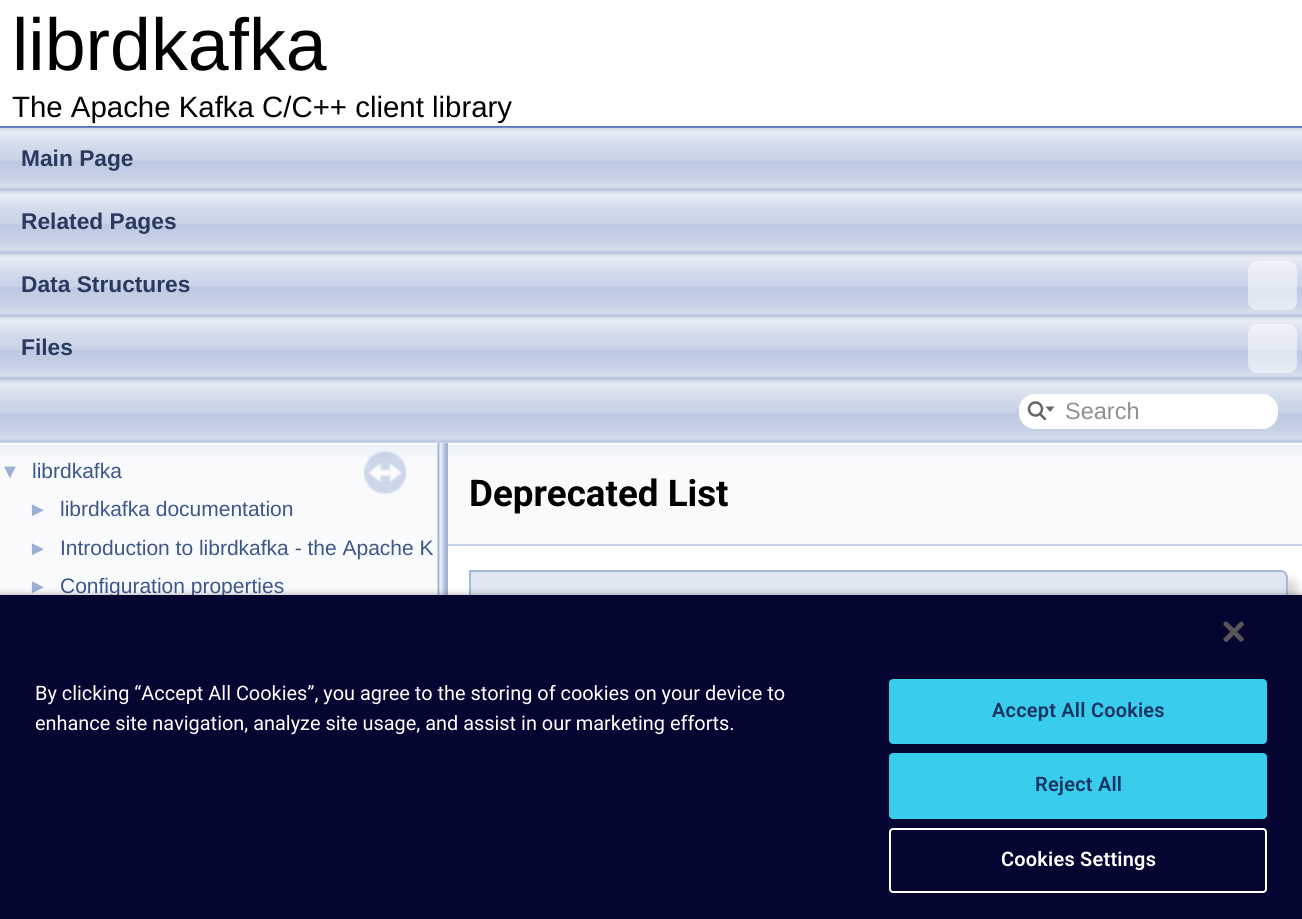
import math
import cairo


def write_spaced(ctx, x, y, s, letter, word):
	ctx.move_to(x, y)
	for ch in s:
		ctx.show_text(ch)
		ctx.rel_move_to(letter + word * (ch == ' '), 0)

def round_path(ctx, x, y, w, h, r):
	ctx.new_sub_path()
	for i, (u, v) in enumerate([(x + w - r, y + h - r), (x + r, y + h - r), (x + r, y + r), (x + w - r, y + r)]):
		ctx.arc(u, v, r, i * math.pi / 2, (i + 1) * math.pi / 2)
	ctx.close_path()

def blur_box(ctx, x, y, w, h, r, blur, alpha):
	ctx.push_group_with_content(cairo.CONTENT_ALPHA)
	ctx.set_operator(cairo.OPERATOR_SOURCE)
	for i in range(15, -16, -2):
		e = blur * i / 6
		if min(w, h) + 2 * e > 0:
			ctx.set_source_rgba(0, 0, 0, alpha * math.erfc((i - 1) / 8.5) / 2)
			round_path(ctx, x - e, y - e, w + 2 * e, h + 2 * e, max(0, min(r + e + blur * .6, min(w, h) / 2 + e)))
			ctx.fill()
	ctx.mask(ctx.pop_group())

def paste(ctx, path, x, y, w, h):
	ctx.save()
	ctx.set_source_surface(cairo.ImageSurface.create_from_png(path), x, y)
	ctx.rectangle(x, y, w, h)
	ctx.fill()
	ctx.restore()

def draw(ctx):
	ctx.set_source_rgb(1, 1, 1)
	ctx.paint()
	ctx.set_source_rgb(0.325, 0.451, 0.706)
	ctx.rectangle(0, 126, 1302, 2)
	ctx.fill()
	ctx.select_font_face('Liberation Sans')
	ctx.set_font_size(73.5)
	ctx.set_source_rgb(0, 0, 0)
	ctx.move_to(12, 70)
	ctx.show_text('librdkafka')
	ctx.set_font_size(29.4)
	ctx.move_to(12, 117)
	ctx.show_text('The Apache Kafka C/C++ client library')
	ctx.set_source_rgb(0.976, 0.98, 0.988)
	ctx.rectangle(0, 443, 438, 152)
	ctx.fill()
	paste(ctx, 'media/2.png', 0, 443, 438, 14)
	paste(ctx, 'media/4.png', 437, 442, 11, 153)
	paste(ctx, 'media/1.png', 0, 127, 1302, 316)
	ctx.select_font_face('Liberation Sans', cairo.FONT_SLANT_NORMAL, cairo.FONT_WEIGHT_BOLD)
	ctx.set_font_size(22.75)
	ctx.set_source_rgb(0.157, 0.227, 0.365)
	for x, y, s in [
		(21, 166, 'Main Page'),
		(21, 229, 'Related Pages'),
		(21, 292, 'Data Structures'),
	]:
		ctx.move_to(x, y)
		ctx.show_text(s)
	ctx.set_source_rgba(1, 1, 1, 0.5)
	round_path(ctx, 1248, 261, 49, 49, 9)
	ctx.fill()
	ctx.set_source_rgb(0.157, 0.227, 0.365)
	ctx.move_to(21, 355)
	ctx.show_text('Files')
	ctx.set_source_rgba(1, 1, 1, 0.5)
	round_path(ctx, 1248, 324, 49, 49, 9)
	ctx.fill()
	ctx.set_source_rgb(1, 1, 1)
	round_path(ctx, 1019, 394, 259, 35, 16)
	ctx.fill()
	ctx.arc(1035.5, 409, 6.5, 0, 2 * math.pi)
	ctx.set_source_rgb(0.396, 0.396, 0.396)
	ctx.set_line_width(2.5)
	ctx.stroke()
	ctx.new_path()
	ctx.move_to(1045.5, 406.5)
	ctx.line_to(1050, 412)
	ctx.line_to(1054.5, 406.5)
	ctx.close_path()
	ctx.fill()
	ctx.new_path()
	ctx.move_to(1040, 414)
	ctx.line_to(1045, 419)
	ctx.set_line_cap(cairo.LINE_CAP_ROUND)
	ctx.stroke()
	ctx.select_font_face('Liberation Sans')
	ctx.set_font_size(23.5)
	ctx.set_source_rgb(0.565, 0.565, 0.565)
	ctx.move_to(1065, 419)
	ctx.show_text('Search')
	paste(ctx, 'media/3.png', 364, 451, 42, 43)
	ctx.set_font_size(20)
	ctx.set_source_rgb(0.612, 0.686, 0.831)
	ctx.move_to(0, 478)
	ctx.show_text('▼')
	ctx.set_font_size(21)
	ctx.set_source_rgb(0.239, 0.341, 0.549)
	ctx.move_to(32, 478)
	ctx.show_text('librdkafka')
	ctx.set_font_size(20)
	ctx.set_source_rgb(0.612, 0.686, 0.831)
	ctx.move_to(28, 516)
	ctx.show_text('►')
	ctx.set_font_size(21)
	ctx.set_source_rgb(0.239, 0.341, 0.549)
	ctx.move_to(60, 516)
	ctx.show_text('librdkafka documentation')
	ctx.set_font_size(20)
	ctx.set_source_rgb(0.612, 0.686, 0.831)
	ctx.move_to(28, 555)
	ctx.show_text('►')
	ctx.set_font_size(21)
	ctx.set_source_rgb(0.239, 0.341, 0.549)
	ctx.move_to(60, 555)
	ctx.show_text('Introduction to librdkafka - the Apache K')
	ctx.set_font_size(20)
	ctx.set_source_rgb(0.612, 0.686, 0.831)
	ctx.move_to(28, 593)
	ctx.show_text('►')
	ctx.set_font_size(21)
	ctx.set_source_rgb(0.239, 0.341, 0.549)
	ctx.move_to(60, 593)
	ctx.show_text('Configuration properties')
	ctx.set_source_rgb(0.976, 0.98, 0.988)
	ctx.rectangle(448, 457, 854, 87)
	ctx.fill()
	paste(ctx, 'media/5.png', 448, 443, 854, 14)
	ctx.set_source_rgb(0.769, 0.812, 0.898)
	ctx.rectangle(448, 544, 854, 2)
	ctx.fill()
	ctx.select_font_face('Roboto', cairo.FONT_SLANT_NORMAL, cairo.FONT_WEIGHT_BOLD)
	ctx.set_font_size(36.75)
	ctx.set_source_rgb(0, 0, 0)
	ctx.move_to(469, 506)
	ctx.show_text('Deprecated List')
	ctx.set_source_rgb(0, 0, 0)
	blur_box(ctx, 478, 579, 819, 135, 7, 4.5, 0.15)
	ctx.set_source_rgb(0.875, 0.898, 0.945)
	ctx.new_path()
	ctx.move_to(469, 571)
	ctx.line_to(1281, 571)
	ctx.curve_to(1285, 571, 1288, 574, 1288, 578)
	ctx.line_to(1288, 705)
	ctx.line_to(469, 705)
	ctx.close_path()
	ctx.fill()
	ctx.set_source_rgb(0.659, 0.722, 0.851)
	ctx.set_fill_rule(cairo.FILL_RULE_EVEN_ODD)
	ctx.new_path()
	ctx.move_to(469, 570)
	ctx.line_to(1281, 570)
	ctx.curve_to(1285, 570, 1288, 574, 1288, 578)
	ctx.line_to(1288, 705)
	ctx.line_to(469, 705)
	ctx.close_path()
	ctx.move_to(471, 572)
	ctx.line_to(1281, 572)
	ctx.curve_to(1284, 572, 1286, 575, 1286, 578)
	ctx.line_to(1286, 705)
	ctx.line_to(471, 705)
	ctx.close_path()
	ctx.fill()
	ctx.set_source_rgb(0, 0, 0)
	blur_box(ctx, 0, 595, 1302, 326, 0, 3.5, 0.35)
	ctx.set_source_rgb(0.016, 0.02, 0.192)
	ctx.rectangle(0, 595, 1302, 324)
	ctx.fill()
	paste(ctx, 'media/6.png', 1223, 621, 21, 21)
	ctx.select_font_face('Roboto')
	ctx.set_font_size(19.9)
	ctx.set_source_rgb(1, 1, 1)
	ctx.move_to(35, 700)
	ctx.show_text('By clicking “Accept All Cookies”, you agree to the storing of cookies on your device to')
	ctx.move_to(35, 730)
	ctx.show_text('enhance site navigation, analyze site usage, and assist in our marketing efforts.')
	ctx.set_source_rgb(0.22, 0.8, 0.929)
	round_path(ctx, 890, 680, 376, 63, 3)
	ctx.fill_preserve()
	ctx.set_line_width(2)
	ctx.set_line_cap(cairo.LINE_CAP_BUTT)
	ctx.stroke()
	ctx.select_font_face('Roboto SemiBold')
	ctx.set_source_rgb(0.09, 0.2, 0.38)
	write_spaced(ctx, 992, 717, 'Accept All Cookies', 0.25, 0)
	ctx.set_source_rgb(0.22, 0.8, 0.929)
	round_path(ctx, 890, 754, 376, 64, 3)
	ctx.fill_preserve()
	ctx.stroke()
	ctx.set_source_rgb(0.09, 0.2, 0.38)
	write_spaced(ctx, 1035, 791, 'Reject All', 0.25, 0)
	round_path(ctx, 890, 829, 376, 63, 3)
	ctx.set_source_rgb(1, 1, 1)
	ctx.stroke()
	write_spaced(ctx, 1001, 866, 'Cookies Settings', 0.25, 0)


surface = cairo.ImageSurface(cairo.FORMAT_RGB24, 1302, 919)
ctx = cairo.Context(surface)
options = cairo.FontOptions()
options.set_hint_metrics(cairo.HINT_METRICS_OFF)
options.set_hint_style(cairo.HINT_STYLE_NONE)
ctx.set_font_options(options)
ctx.set_miter_limit(4)
draw(ctx)
surface.write_to_png('image.png')
